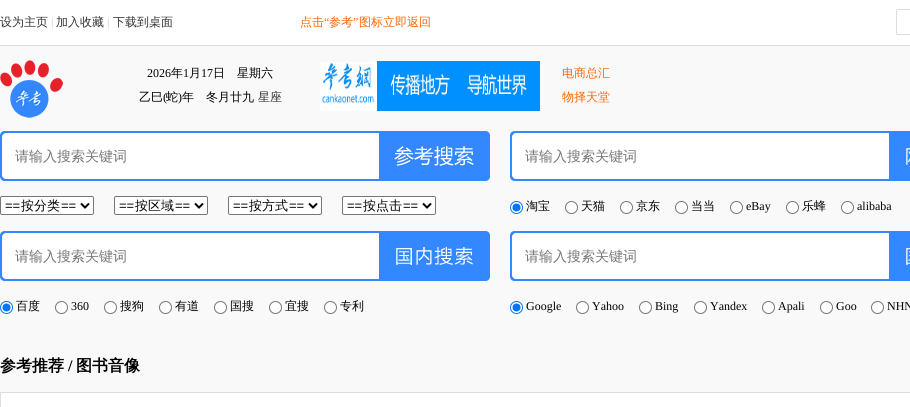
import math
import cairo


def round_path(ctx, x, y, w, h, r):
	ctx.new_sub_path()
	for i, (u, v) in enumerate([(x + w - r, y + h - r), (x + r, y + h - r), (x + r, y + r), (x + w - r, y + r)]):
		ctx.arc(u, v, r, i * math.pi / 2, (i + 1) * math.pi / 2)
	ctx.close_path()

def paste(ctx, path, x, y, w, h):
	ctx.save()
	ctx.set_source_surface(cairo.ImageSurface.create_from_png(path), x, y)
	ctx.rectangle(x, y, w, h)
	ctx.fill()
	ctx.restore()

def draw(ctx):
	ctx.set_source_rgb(0.976, 0.976, 0.976)
	ctx.paint()
	ctx.set_source_rgb(1, 1, 1)
	ctx.rectangle(0, 0, 910, 45)
	ctx.fill()
	ctx.set_source_rgb(0.867, 0.867, 0.867)
	ctx.rectangle(0, 45, 910, 1)
	ctx.fill()
	ctx.select_font_face('WenQuanYi Zen Hei Medium')
	ctx.set_font_size(12)
	ctx.set_source_rgb(0.2, 0.2, 0.2)
	ctx.move_to(0, 26)
	ctx.show_text('设为主页')
	ctx.select_font_face('Liberation Serif')
	ctx.set_source_rgb(0.8, 0.8, 0.8)
	ctx.move_to(51, 26)
	ctx.show_text('|')
	ctx.select_font_face('WenQuanYi Zen Hei Medium')
	ctx.set_source_rgb(0.2, 0.2, 0.2)
	ctx.move_to(56, 26)
	ctx.show_text('加入收藏')
	ctx.select_font_face('Liberation Serif')
	ctx.set_source_rgb(0.8, 0.8, 0.8)
	ctx.move_to(107, 26)
	ctx.show_text('|')
	ctx.select_font_face('WenQuanYi Zen Hei Medium')
	ctx.set_source_rgb(0.2, 0.2, 0.2)
	ctx.move_to(113, 26)
	ctx.show_text('下载到桌面')
	ctx.set_source_rgb(1, 0.4, 0)
	ctx.move_to(300, 26)
	ctx.show_text('点击')
	ctx.select_font_face('Liberation Serif')
	ctx.move_to(324, 26)
	ctx.show_text('“')
	ctx.select_font_face('WenQuanYi Zen Hei Medium')
	ctx.move_to(329, 26)
	ctx.show_text('参考')
	ctx.select_font_face('Liberation Serif')
	ctx.move_to(353, 26)
	ctx.show_text('”')
	ctx.select_font_face('WenQuanYi Zen Hei Medium')
	ctx.move_to(359, 26)
	ctx.show_text('图标立即返回')
	round_path(ctx, 896.5, 9.5, 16, 25, 1.5)
	ctx.set_source_rgb(0.867, 0.867, 0.867)
	ctx.set_line_width(1)
	ctx.stroke()
	paste(ctx, 'media/1.png', 0, 60, 63, 58)
	ctx.select_font_face('Liberation Serif')
	ctx.set_source_rgb(0, 0, 0)
	ctx.move_to(147, 77)
	ctx.show_text('2026')
	ctx.select_font_face('WenQuanYi Zen Hei Medium')
	ctx.move_to(171, 77)
	ctx.show_text('年')
	ctx.select_font_face('Liberation Serif')
	ctx.move_to(183, 77)
	ctx.show_text('1')
	ctx.select_font_face('WenQuanYi Zen Hei Medium')
	ctx.move_to(189, 77)
	ctx.show_text('月')
	ctx.select_font_face('Liberation Serif')
	ctx.move_to(201, 77)
	ctx.show_text('17')
	ctx.select_font_face('WenQuanYi Zen Hei Medium')
	ctx.move_to(213, 77)
	ctx.show_text('日　星期六')
	ctx.move_to(139, 101)
	ctx.show_text('乙巳')
	ctx.select_font_face('Liberation Serif')
	ctx.move_to(163, 101)
	ctx.show_text('(')
	ctx.select_font_face('WenQuanYi Zen Hei Medium')
	ctx.move_to(166, 101)
	ctx.show_text('蛇')
	ctx.select_font_face('Liberation Serif')
	ctx.move_to(178, 101)
	ctx.show_text(')')
	ctx.select_font_face('WenQuanYi Zen Hei Medium')
	ctx.move_to(182, 101)
	ctx.show_text('年　冬月廿九')
	ctx.set_source_rgb(0.2, 0.2, 0.2)
	ctx.move_to(258, 101)
	ctx.show_text('星座')
	paste(ctx, 'media/2.png', 320, 61, 220, 50)
	ctx.set_source_rgb(1, 0.4, 0)
	ctx.move_to(562, 77)
	ctx.show_text('电商总汇')
	ctx.move_to(562, 101)
	ctx.show_text('物择天堂')
	paste(ctx, 'media/3.png', 0, 131, 490, 50)
	ctx.set_font_size(14)
	ctx.set_source_rgb(0.459, 0.459, 0.459)
	ctx.move_to(15, 161)
	ctx.show_text('请输入搜索关键词')
	ctx.set_source_rgb(1, 1, 1)
	round_path(ctx, 0.5, 196.5, 93, 18, 1.5)
	ctx.fill_preserve()
	ctx.set_source_rgb(0.463, 0.463, 0.463)
	ctx.stroke()
	ctx.new_path()
	ctx.move_to(81, 203.5)
	ctx.line_to(85, 207.5)
	ctx.line_to(89, 203.5)
	ctx.set_source_rgb(0, 0, 0)
	ctx.set_line_width(2)
	ctx.stroke()
	ctx.select_font_face('Liberation Sans')
	ctx.set_font_size(13)
	ctx.move_to(5, 210)
	ctx.show_text('==')
	ctx.select_font_face('WenQuanYi Zen Hei Medium')
	ctx.move_to(21, 210)
	ctx.show_text('按分类')
	ctx.select_font_face('Liberation Sans')
	ctx.move_to(61, 210)
	ctx.show_text('==')
	ctx.set_source_rgb(1, 1, 1)
	round_path(ctx, 114.5, 196.5, 93, 18, 1.5)
	ctx.fill_preserve()
	ctx.set_source_rgb(0.463, 0.463, 0.463)
	ctx.set_line_width(1)
	ctx.stroke()
	ctx.new_path()
	ctx.move_to(195, 203.5)
	ctx.line_to(199, 207.5)
	ctx.line_to(203, 203.5)
	ctx.set_source_rgb(0, 0, 0)
	ctx.set_line_width(2)
	ctx.stroke()
	ctx.move_to(119, 210)
	ctx.show_text('==')
	ctx.select_font_face('WenQuanYi Zen Hei Medium')
	ctx.move_to(135, 210)
	ctx.show_text('按区域')
	ctx.select_font_face('Liberation Sans')
	ctx.move_to(175, 210)
	ctx.show_text('==')
	ctx.set_source_rgb(1, 1, 1)
	round_path(ctx, 228.5, 196.5, 93, 18, 1.5)
	ctx.fill_preserve()
	ctx.set_source_rgb(0.463, 0.463, 0.463)
	ctx.set_line_width(1)
	ctx.stroke()
	ctx.new_path()
	ctx.move_to(309, 203.5)
	ctx.line_to(313, 207.5)
	ctx.line_to(317, 203.5)
	ctx.set_source_rgb(0, 0, 0)
	ctx.set_line_width(2)
	ctx.stroke()
	ctx.move_to(233, 210)
	ctx.show_text('==')
	ctx.select_font_face('WenQuanYi Zen Hei Medium')
	ctx.move_to(249, 210)
	ctx.show_text('按方式')
	ctx.select_font_face('Liberation Sans')
	ctx.move_to(289, 210)
	ctx.show_text('==')
	ctx.set_source_rgb(1, 1, 1)
	round_path(ctx, 342.5, 196.5, 93, 18, 1.5)
	ctx.fill_preserve()
	ctx.set_source_rgb(0.463, 0.463, 0.463)
	ctx.set_line_width(1)
	ctx.stroke()
	ctx.new_path()
	ctx.move_to(423, 203.5)
	ctx.line_to(427, 207.5)
	ctx.line_to(431, 203.5)
	ctx.set_source_rgb(0, 0, 0)
	ctx.set_line_width(2)
	ctx.stroke()
	ctx.move_to(347, 210)
	ctx.show_text('==')
	ctx.select_font_face('WenQuanYi Zen Hei Medium')
	ctx.move_to(363, 210)
	ctx.show_text('按点击')
	ctx.select_font_face('Liberation Sans')
	ctx.move_to(403, 210)
	ctx.show_text('==')
	paste(ctx, 'media/4.png', 510, 131, 400, 50)
	ctx.select_font_face('WenQuanYi Zen Hei Medium')
	ctx.set_font_size(14)
	ctx.set_source_rgb(0.459, 0.459, 0.459)
	ctx.move_to(525, 161)
	ctx.show_text('请输入搜索关键词')
	ctx.set_source_rgb(1, 1, 1)
	ctx.new_path()
	ctx.arc(516.5, 207.5, 6, 0, 2 * math.pi)
	ctx.fill_preserve()
	ctx.set_source_rgb(0, 0.459, 1)
	ctx.set_line_width(1)
	ctx.stroke()
	ctx.arc(516.5, 207.5, 4, 0, 2 * math.pi)
	ctx.fill()
	ctx.set_font_size(12)
	ctx.set_source_rgb(0, 0, 0)
	ctx.move_to(526, 210)
	ctx.show_text('淘宝')
	ctx.set_source_rgb(1, 1, 1)
	ctx.new_path()
	ctx.arc(571.5, 207.5, 6, 0, 2 * math.pi)
	ctx.fill_preserve()
	ctx.set_source_rgb(0.463, 0.463, 0.463)
	ctx.stroke()
	ctx.set_source_rgb(0, 0, 0)
	ctx.move_to(581, 210)
	ctx.show_text('天猫')
	ctx.set_source_rgb(1, 1, 1)
	ctx.new_path()
	ctx.arc(626.5, 207.5, 6, 0, 2 * math.pi)
	ctx.fill_preserve()
	ctx.set_source_rgb(0.463, 0.463, 0.463)
	ctx.stroke()
	ctx.set_source_rgb(0, 0, 0)
	ctx.move_to(636, 210)
	ctx.show_text('京东')
	ctx.set_source_rgb(1, 1, 1)
	ctx.new_path()
	ctx.arc(681.5, 207.5, 6, 0, 2 * math.pi)
	ctx.fill_preserve()
	ctx.set_source_rgb(0.463, 0.463, 0.463)
	ctx.stroke()
	ctx.set_source_rgb(0, 0, 0)
	ctx.move_to(691, 210)
	ctx.show_text('当当')
	ctx.set_source_rgb(1, 1, 1)
	ctx.new_path()
	ctx.arc(736.5, 207.5, 6, 0, 2 * math.pi)
	ctx.fill_preserve()
	ctx.set_source_rgb(0.463, 0.463, 0.463)
	ctx.stroke()
	ctx.select_font_face('Liberation Serif')
	ctx.set_source_rgb(0, 0, 0)
	ctx.move_to(746, 210)
	ctx.show_text('eBay')
	ctx.set_source_rgb(1, 1, 1)
	ctx.new_path()
	ctx.arc(792.5, 207.5, 6, 0, 2 * math.pi)
	ctx.fill_preserve()
	ctx.set_source_rgb(0.463, 0.463, 0.463)
	ctx.stroke()
	ctx.select_font_face('WenQuanYi Zen Hei Medium')
	ctx.set_source_rgb(0, 0, 0)
	ctx.move_to(802, 210)
	ctx.show_text('乐蜂')
	ctx.set_source_rgb(1, 1, 1)
	ctx.new_path()
	ctx.arc(847.5, 207.5, 6, 0, 2 * math.pi)
	ctx.fill_preserve()
	ctx.set_source_rgb(0.463, 0.463, 0.463)
	ctx.stroke()
	ctx.select_font_face('Liberation Serif')
	ctx.set_source_rgb(0, 0, 0)
	ctx.move_to(857, 210)
	ctx.show_text('alibaba')
	paste(ctx, 'media/5.png', 0, 231, 490, 50)
	ctx.select_font_face('WenQuanYi Zen Hei Medium')
	ctx.set_font_size(14)
	ctx.set_source_rgb(0.459, 0.459, 0.459)
	ctx.move_to(15, 261)
	ctx.show_text('请输入搜索关键词')
	ctx.set_source_rgb(1, 1, 1)
	ctx.new_path()
	ctx.arc(6.5, 307.5, 6, 0, 2 * math.pi)
	ctx.fill_preserve()
	ctx.set_source_rgb(0, 0.459, 1)
	ctx.stroke()
	ctx.arc(6.5, 307.5, 4, 0, 2 * math.pi)
	ctx.fill()
	ctx.set_font_size(12)
	ctx.set_source_rgb(0, 0, 0)
	ctx.move_to(16, 310)
	ctx.show_text('百度')
	ctx.set_source_rgb(1, 1, 1)
	ctx.new_path()
	ctx.arc(61.5, 307.5, 6, 0, 2 * math.pi)
	ctx.fill_preserve()
	ctx.set_source_rgb(0.463, 0.463, 0.463)
	ctx.stroke()
	ctx.select_font_face('Liberation Serif')
	ctx.set_source_rgb(0, 0, 0)
	ctx.move_to(71, 310)
	ctx.show_text('360')
	ctx.set_source_rgb(1, 1, 1)
	ctx.new_path()
	ctx.arc(110.5, 307.5, 6, 0, 2 * math.pi)
	ctx.fill_preserve()
	ctx.set_source_rgb(0.463, 0.463, 0.463)
	ctx.stroke()
	ctx.select_font_face('WenQuanYi Zen Hei Medium')
	ctx.set_source_rgb(0, 0, 0)
	ctx.move_to(120, 310)
	ctx.show_text('搜狗')
	ctx.set_source_rgb(1, 1, 1)
	ctx.new_path()
	ctx.arc(165.5, 307.5, 6, 0, 2 * math.pi)
	ctx.fill_preserve()
	ctx.set_source_rgb(0.463, 0.463, 0.463)
	ctx.stroke()
	ctx.set_source_rgb(0, 0, 0)
	ctx.move_to(175, 310)
	ctx.show_text('有道')
	ctx.set_source_rgb(1, 1, 1)
	ctx.new_path()
	ctx.arc(220.5, 307.5, 6, 0, 2 * math.pi)
	ctx.fill_preserve()
	ctx.set_source_rgb(0.463, 0.463, 0.463)
	ctx.stroke()
	ctx.set_source_rgb(0, 0, 0)
	ctx.move_to(230, 310)
	ctx.show_text('国搜')
	ctx.set_source_rgb(1, 1, 1)
	ctx.new_path()
	ctx.arc(275.5, 307.5, 6, 0, 2 * math.pi)
	ctx.fill_preserve()
	ctx.set_source_rgb(0.463, 0.463, 0.463)
	ctx.stroke()
	ctx.set_source_rgb(0, 0, 0)
	ctx.move_to(285, 310)
	ctx.show_text('宜搜')
	ctx.set_source_rgb(1, 1, 1)
	ctx.new_path()
	ctx.arc(330.5, 307.5, 6, 0, 2 * math.pi)
	ctx.fill_preserve()
	ctx.set_source_rgb(0.463, 0.463, 0.463)
	ctx.stroke()
	ctx.set_source_rgb(0, 0, 0)
	ctx.move_to(340, 310)
	ctx.show_text('专利')
	paste(ctx, 'media/6.png', 510, 231, 400, 50)
	ctx.set_font_size(14)
	ctx.set_source_rgb(0.459, 0.459, 0.459)
	ctx.move_to(525, 261)
	ctx.show_text('请输入搜索关键词')
	ctx.set_source_rgb(1, 1, 1)
	ctx.new_path()
	ctx.arc(516.5, 307.5, 6, 0, 2 * math.pi)
	ctx.fill_preserve()
	ctx.set_source_rgb(0, 0.459, 1)
	ctx.stroke()
	ctx.arc(516.5, 307.5, 4, 0, 2 * math.pi)
	ctx.fill()
	ctx.select_font_face('Liberation Serif')
	ctx.set_font_size(12)
	ctx.set_source_rgb(0, 0, 0)
	ctx.move_to(526, 310)
	ctx.show_text('Google')
	ctx.set_source_rgb(1, 1, 1)
	ctx.new_path()
	ctx.arc(582.5, 307.5, 6, 0, 2 * math.pi)
	ctx.fill_preserve()
	ctx.set_source_rgb(0.463, 0.463, 0.463)
	ctx.stroke()
	ctx.set_source_rgb(0, 0, 0)
	ctx.move_to(592, 310)
	ctx.show_text('Yahoo')
	ctx.set_source_rgb(1, 1, 1)
	ctx.new_path()
	ctx.arc(645.5, 307.5, 6, 0, 2 * math.pi)
	ctx.fill_preserve()
	ctx.set_source_rgb(0.463, 0.463, 0.463)
	ctx.stroke()
	ctx.set_source_rgb(0, 0, 0)
	ctx.move_to(655, 310)
	ctx.show_text('Bing')
	ctx.set_source_rgb(1, 1, 1)
	ctx.new_path()
	ctx.arc(700.5, 307.5, 6, 0, 2 * math.pi)
	ctx.fill_preserve()
	ctx.set_source_rgb(0.463, 0.463, 0.463)
	ctx.stroke()
	ctx.set_source_rgb(0, 0, 0)
	ctx.move_to(710, 310)
	ctx.show_text('Yandex')
	ctx.set_source_rgb(1, 1, 1)
	ctx.new_path()
	ctx.arc(768.5, 307.5, 6, 0, 2 * math.pi)
	ctx.fill_preserve()
	ctx.set_source_rgb(0.463, 0.463, 0.463)
	ctx.stroke()
	ctx.set_source_rgb(0, 0, 0)
	ctx.move_to(778, 310)
	ctx.show_text('Apali')
	ctx.set_source_rgb(1, 1, 1)
	ctx.new_path()
	ctx.arc(826.5, 307.5, 6, 0, 2 * math.pi)
	ctx.fill_preserve()
	ctx.set_source_rgb(0.463, 0.463, 0.463)
	ctx.stroke()
	ctx.set_source_rgb(0, 0, 0)
	ctx.move_to(836, 310)
	ctx.show_text('Goo')
	ctx.set_source_rgb(1, 1, 1)
	ctx.new_path()
	ctx.arc(877.5, 307.5, 6, 0, 2 * math.pi)
	ctx.fill_preserve()
	ctx.set_source_rgb(0.463, 0.463, 0.463)
	ctx.stroke()
	ctx.set_source_rgb(0, 0, 0)
	ctx.move_to(887, 310)
	ctx.show_text('NHN')
	ctx.select_font_face('WenQuanYi Zen Hei', cairo.FONT_SLANT_NORMAL, cairo.FONT_WEIGHT_BOLD)
	ctx.set_font_size(16)
	ctx.move_to(0, 371)
	ctx.show_text('参考推荐')
	ctx.select_font_face('Liberation Serif', cairo.FONT_SLANT_NORMAL, cairo.FONT_WEIGHT_BOLD)
	ctx.move_to(68, 371)
	ctx.show_text('/')
	ctx.select_font_face('WenQuanYi Zen Hei', cairo.FONT_SLANT_NORMAL, cairo.FONT_WEIGHT_BOLD)
	ctx.move_to(76, 371)
	ctx.show_text('图书音像')
	ctx.set_source_rgb(0.867, 0.867, 0.867)
	ctx.rectangle(0, 392, 910, 1)
	ctx.rectangle(0, 392, 1, 15)
	ctx.fill()
	ctx.set_source_rgb(1, 1, 1)
	ctx.rectangle(1, 393, 909, 14)
	ctx.fill()


surface = cairo.ImageSurface(cairo.FORMAT_RGB24, 910, 407)
ctx = cairo.Context(surface)
options = cairo.FontOptions()
options.set_hint_metrics(cairo.HINT_METRICS_OFF)
options.set_hint_style(cairo.HINT_STYLE_NONE)
ctx.set_font_options(options)
ctx.set_miter_limit(4)
draw(ctx)
surface.write_to_png('image.png')
